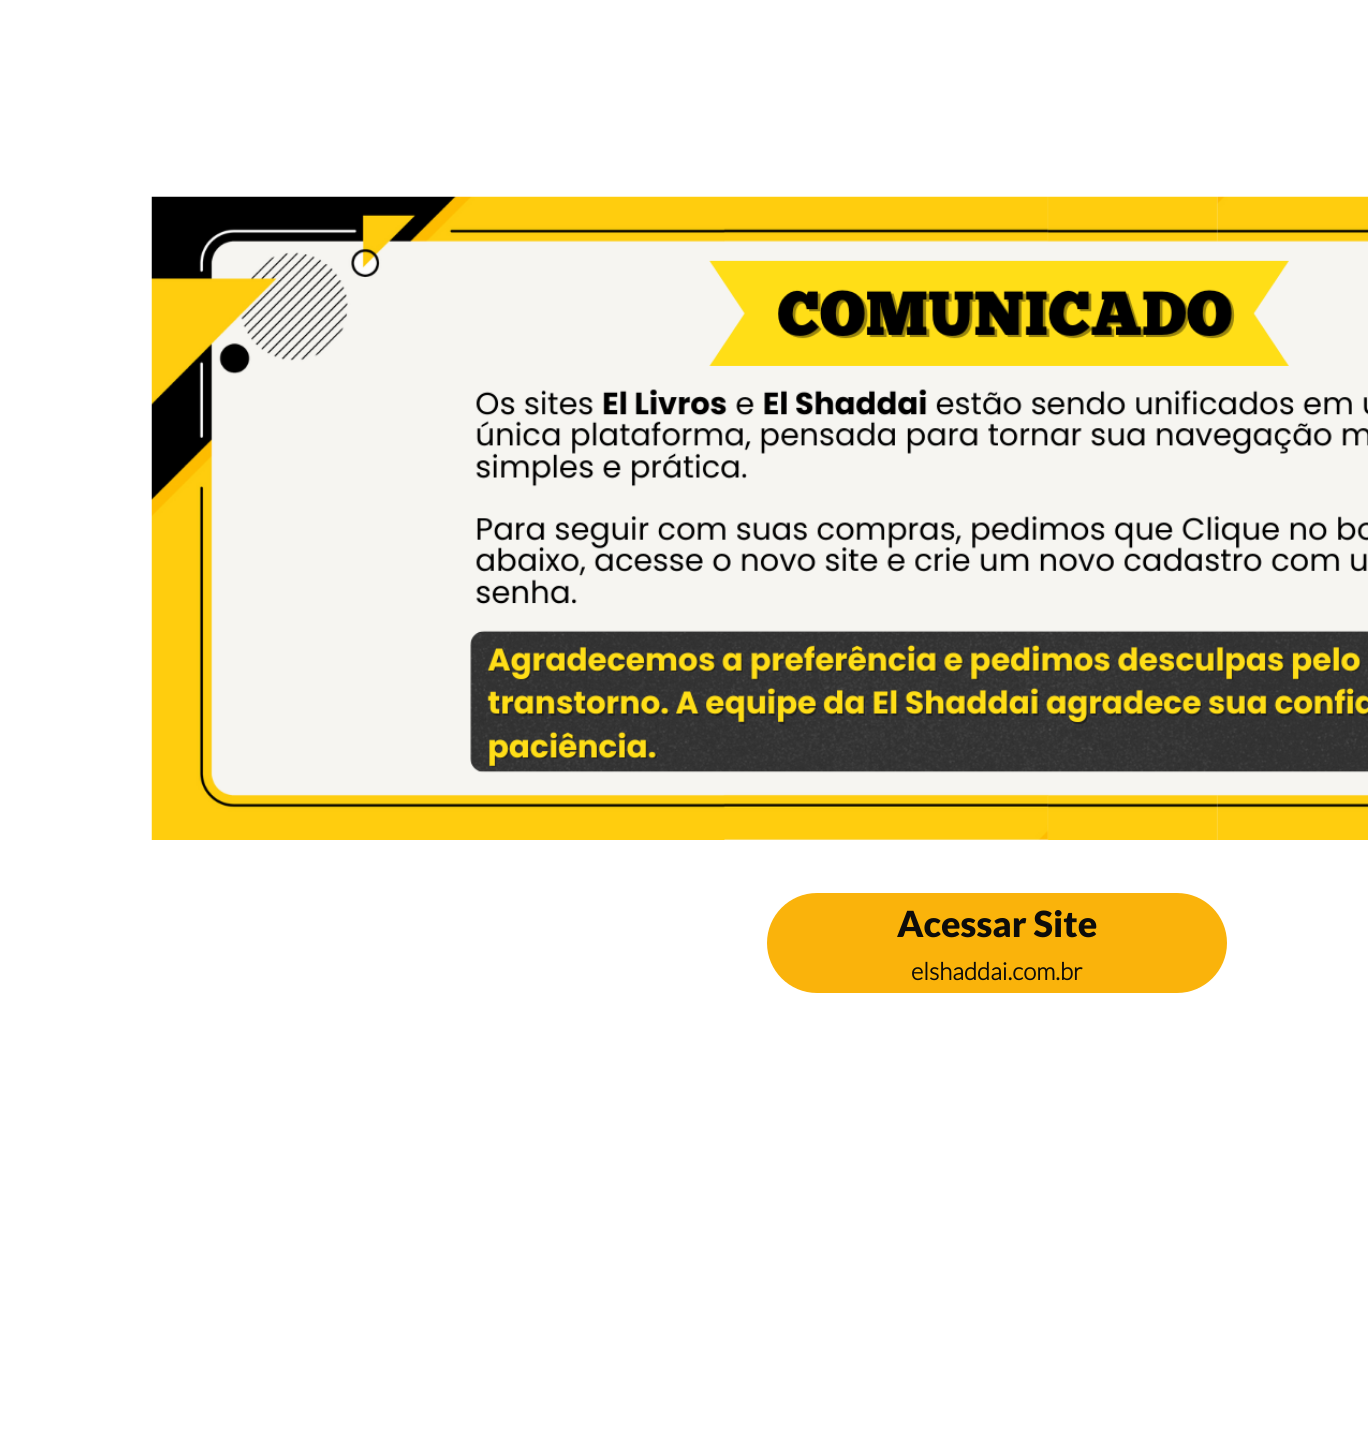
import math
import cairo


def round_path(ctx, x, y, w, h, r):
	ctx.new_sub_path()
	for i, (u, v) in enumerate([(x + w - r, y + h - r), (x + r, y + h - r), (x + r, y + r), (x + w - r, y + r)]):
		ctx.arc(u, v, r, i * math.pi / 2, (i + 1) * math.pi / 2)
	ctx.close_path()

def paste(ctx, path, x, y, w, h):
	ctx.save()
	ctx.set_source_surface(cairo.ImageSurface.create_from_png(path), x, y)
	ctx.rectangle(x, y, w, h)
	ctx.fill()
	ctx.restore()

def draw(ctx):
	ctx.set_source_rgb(1, 1, 1)
	ctx.paint()
	paste(ctx, 'media/1.png', 151, 196, 1217, 644)
	ctx.set_source_rgb(0.98, 0.702, 0.043)
	round_path(ctx, 767, 893, 460, 100, 50)
	ctx.fill()
	ctx.select_font_face('Lato Black')
	ctx.set_font_size(36)
	ctx.set_source_rgb(0.051, 0.047, 0.043)
	ctx.move_to(897, 937)
	ctx.show_text('Acessar Site')
	ctx.select_font_face('Lato', cairo.FONT_SLANT_NORMAL, cairo.FONT_WEIGHT_BOLD)
	ctx.set_font_size(24)
	ctx.move_to(911, 980)
	ctx.show_text('elshaddai.com.br')


surface = cairo.ImageSurface(cairo.FORMAT_RGB24, 1368, 1429)
ctx = cairo.Context(surface)
options = cairo.FontOptions()
options.set_hint_metrics(cairo.HINT_METRICS_OFF)
options.set_hint_style(cairo.HINT_STYLE_NONE)
ctx.set_font_options(options)
ctx.set_miter_limit(4)
draw(ctx)
surface.write_to_png('image.png')
